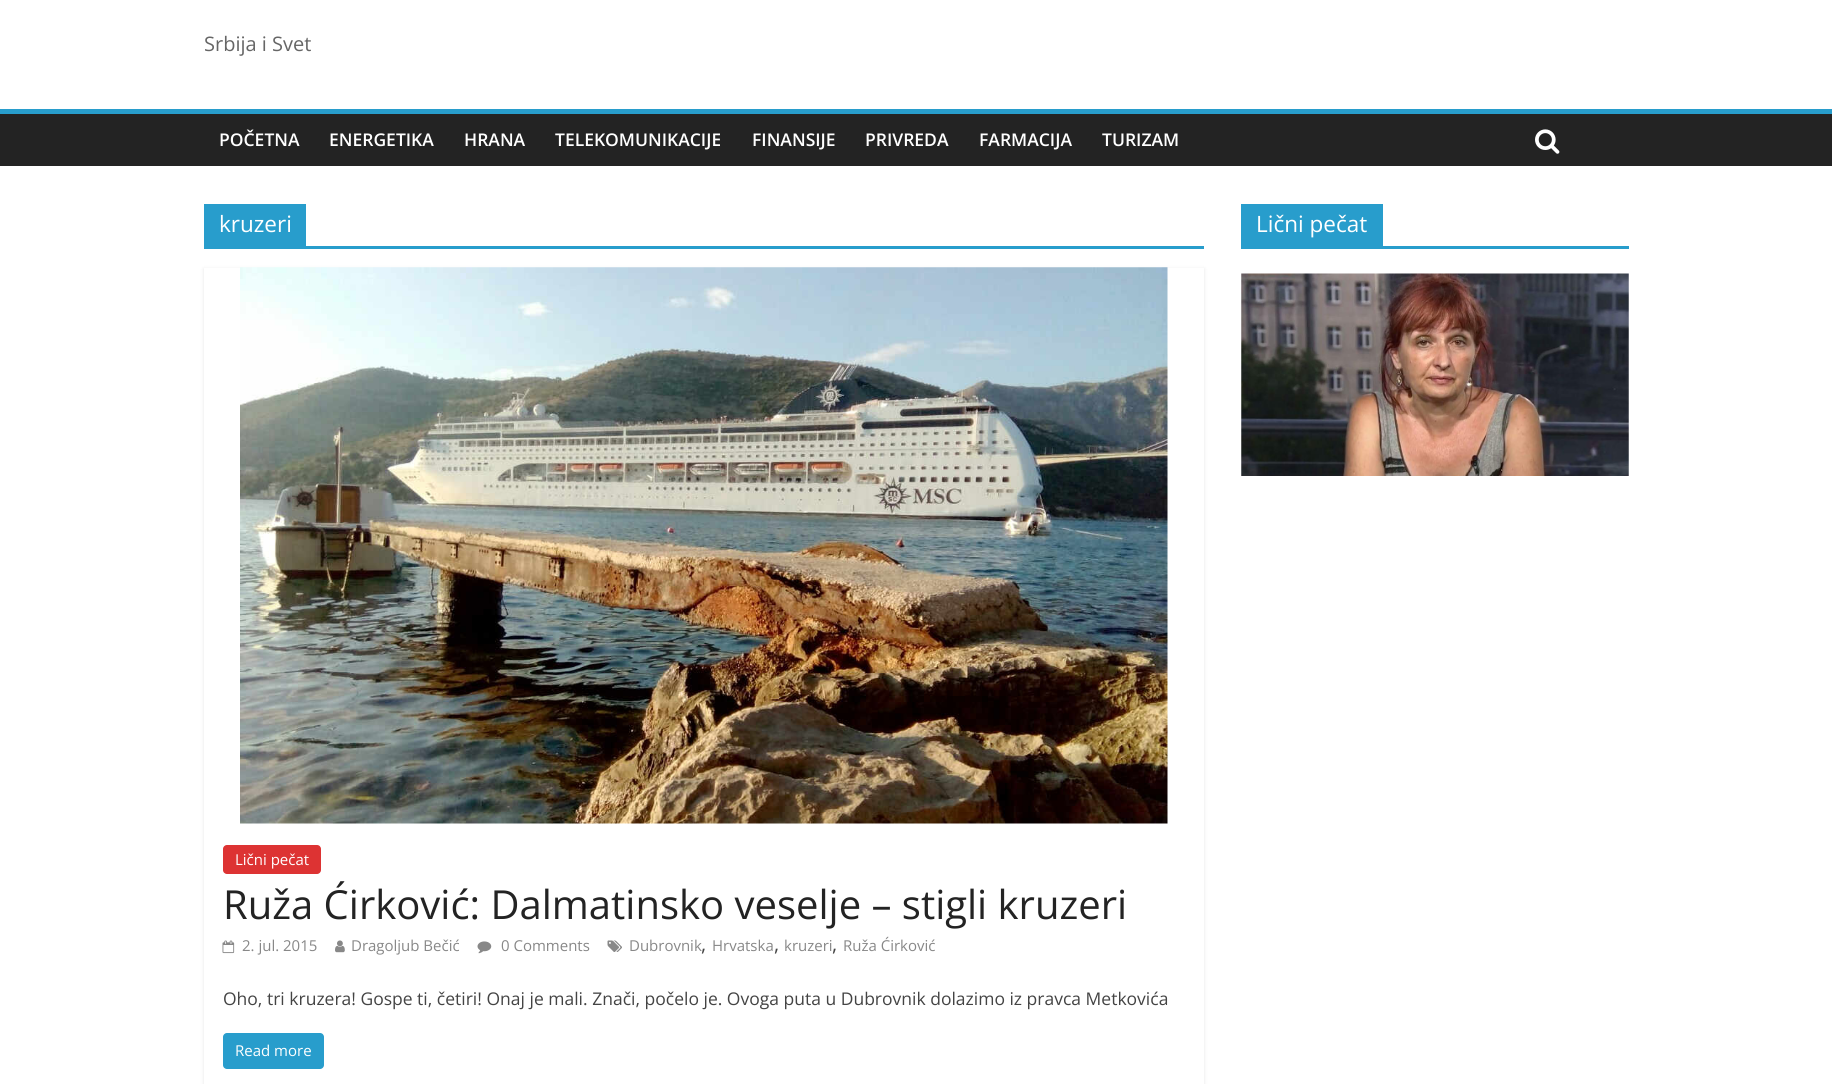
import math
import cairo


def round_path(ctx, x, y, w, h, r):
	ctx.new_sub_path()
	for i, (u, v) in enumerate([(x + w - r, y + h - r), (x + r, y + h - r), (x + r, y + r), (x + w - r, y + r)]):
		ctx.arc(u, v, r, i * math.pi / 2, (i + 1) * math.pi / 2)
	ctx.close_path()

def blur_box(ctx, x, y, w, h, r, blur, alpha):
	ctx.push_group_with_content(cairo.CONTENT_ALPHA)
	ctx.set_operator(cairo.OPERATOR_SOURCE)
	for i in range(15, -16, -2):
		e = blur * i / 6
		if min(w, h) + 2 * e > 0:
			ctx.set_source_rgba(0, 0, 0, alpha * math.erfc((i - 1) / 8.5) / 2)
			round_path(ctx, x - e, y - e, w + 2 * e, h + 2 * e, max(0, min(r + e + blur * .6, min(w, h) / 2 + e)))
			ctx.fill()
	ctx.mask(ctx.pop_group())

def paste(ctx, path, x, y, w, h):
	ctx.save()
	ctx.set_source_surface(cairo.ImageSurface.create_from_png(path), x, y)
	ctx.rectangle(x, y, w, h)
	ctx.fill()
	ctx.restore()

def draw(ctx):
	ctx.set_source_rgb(1, 1, 1)
	ctx.paint()
	ctx.select_font_face('Open Sans')
	ctx.set_font_size(20)
	ctx.set_source_rgb(0.4, 0.4, 0.4)
	ctx.move_to(204, 51)
	ctx.show_text('Srbija i Svet')
	ctx.set_source_rgb(0.137, 0.137, 0.137)
	ctx.rectangle(0, 114, 1832, 52)
	ctx.fill()
	ctx.set_source_rgb(0.157, 0.616, 0.8)
	ctx.rectangle(0, 109, 1832, 5)
	ctx.fill()
	ctx.select_font_face('Open Sans SemiBold')
	ctx.set_font_size(17.5)
	ctx.set_source_rgb(1, 1, 1)
	for x, y, s in [
		(219, 146, 'POČETNA'),
		(329, 146, 'ENERGETIKA'),
		(464, 146, 'HRANA'),
		(555, 146, 'TELEKOMUNIKACIJE'),
		(752, 146, 'FINANSIJE'),
		(865, 146, 'PRIVREDA'),
		(979, 146, 'FARMACIJA'),
		(1102, 146, 'TURIZAM'),
	]:
		ctx.move_to(x, y)
		ctx.show_text(s)
	paste(ctx, 'media/1.png', 1535, 129, 25, 25)
	ctx.set_source_rgb(0.157, 0.616, 0.8)
	ctx.rectangle(204, 246, 1000, 3)
	ctx.fill()
	ctx.rectangle(204, 204, 102, 42)
	ctx.fill()
	ctx.select_font_face('Open Sans')
	ctx.set_font_size(22.5)
	ctx.set_source_rgb(1, 1, 1)
	ctx.move_to(219, 232)
	ctx.show_text('kruzeri')
	ctx.save()
	ctx.set_fill_rule(cairo.FILL_RULE_EVEN_ODD)
	ctx.new_path()
	ctx.move_to(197, 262)
	ctx.line_to(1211, 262)
	ctx.line_to(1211, 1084)
	ctx.line_to(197, 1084)
	ctx.close_path()
	ctx.move_to(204, 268)
	ctx.line_to(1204, 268)
	ctx.line_to(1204, 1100)
	ctx.line_to(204, 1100)
	ctx.close_path()
	ctx.clip()
	ctx.set_source_rgb(0, 0, 0)
	blur_box(ctx, 204, 269, 1000, 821, 0, 2, 0.1)
	ctx.restore()
	paste(ctx, 'media/2.png', 240, 267, 928, 557)
	ctx.set_source_rgb(0.867, 0.2, 0.2)
	round_path(ctx, 223, 845, 98, 29, 4)
	ctx.fill()
	ctx.set_font_size(15)
	ctx.set_source_rgb(1, 1, 1)
	ctx.move_to(235, 865)
	ctx.show_text('Lični pečat')
	ctx.set_font_size(40)
	ctx.set_source_rgb(0.137, 0.137, 0.137)
	ctx.move_to(223, 919)
	ctx.show_text('Ruža Ćirković: Dalmatinsko veselje – stigli kruzeri')
	paste(ctx, 'media/3.png', 222, 940, 13, 14)
	ctx.set_font_size(15)
	ctx.set_source_rgb(0.533, 0.533, 0.533)
	ctx.move_to(242, 951)
	ctx.show_text('2. jul. 2015')
	paste(ctx, 'media/4.png', 335, 940, 10, 13)
	ctx.move_to(351, 951)
	ctx.show_text('Dragoljub Bečić')
	paste(ctx, 'media/5.png', 477, 941, 15, 13)
	ctx.move_to(501, 951)
	ctx.show_text('0 Comments')
	paste(ctx, 'media/6.png', 607, 940, 15, 12)
	ctx.move_to(629, 951)
	ctx.show_text('Dubrovnik')
	ctx.set_font_size(20)
	ctx.set_source_rgb(0.267, 0.267, 0.267)
	ctx.move_to(701, 951)
	ctx.show_text(',')
	ctx.set_font_size(15)
	ctx.set_source_rgb(0.533, 0.533, 0.533)
	ctx.move_to(712, 951)
	ctx.show_text('Hrvatska')
	ctx.set_font_size(20)
	ctx.set_source_rgb(0.267, 0.267, 0.267)
	ctx.move_to(774, 951)
	ctx.show_text(',')
	ctx.set_font_size(15)
	ctx.set_source_rgb(0.533, 0.533, 0.533)
	ctx.move_to(784, 951)
	ctx.show_text('kruzeri')
	ctx.set_font_size(20)
	ctx.set_source_rgb(0.267, 0.267, 0.267)
	ctx.move_to(832, 951)
	ctx.show_text(',')
	ctx.set_font_size(15)
	ctx.set_source_rgb(0.533, 0.533, 0.533)
	ctx.move_to(843, 951)
	ctx.show_text('Ruža Ćirković')
	ctx.set_font_size(17.5)
	ctx.set_source_rgb(0.267, 0.267, 0.267)
	ctx.move_to(223, 1005)
	ctx.show_text('Oho, tri kruzera! Gospe ti, četiri! Onaj je mali. Znači, počelo je. Ovoga puta u Dubrovnik dolazimo iz pravca Metkovića')
	ctx.set_source_rgb(0.157, 0.616, 0.8)
	round_path(ctx, 223, 1033, 101, 36, 4)
	ctx.fill()
	ctx.set_font_size(15)
	ctx.set_source_rgb(1, 1, 1)
	ctx.move_to(235, 1056)
	ctx.show_text('Read more')
	ctx.set_source_rgb(0.157, 0.616, 0.8)
	ctx.rectangle(1241, 246, 388, 3)
	ctx.fill()
	ctx.rectangle(1241, 204, 142, 42)
	ctx.fill()
	ctx.set_font_size(22.5)
	ctx.set_source_rgb(1, 1, 1)
	ctx.move_to(1256, 232)
	ctx.show_text('Lični pečat')
	paste(ctx, 'media/7.png', 1241, 273, 388, 203)


surface = cairo.ImageSurface(cairo.FORMAT_RGB24, 1832, 1084)
ctx = cairo.Context(surface)
options = cairo.FontOptions()
options.set_hint_metrics(cairo.HINT_METRICS_OFF)
options.set_hint_style(cairo.HINT_STYLE_NONE)
ctx.set_font_options(options)
ctx.set_miter_limit(4)
draw(ctx)
surface.write_to_png('image.png')
